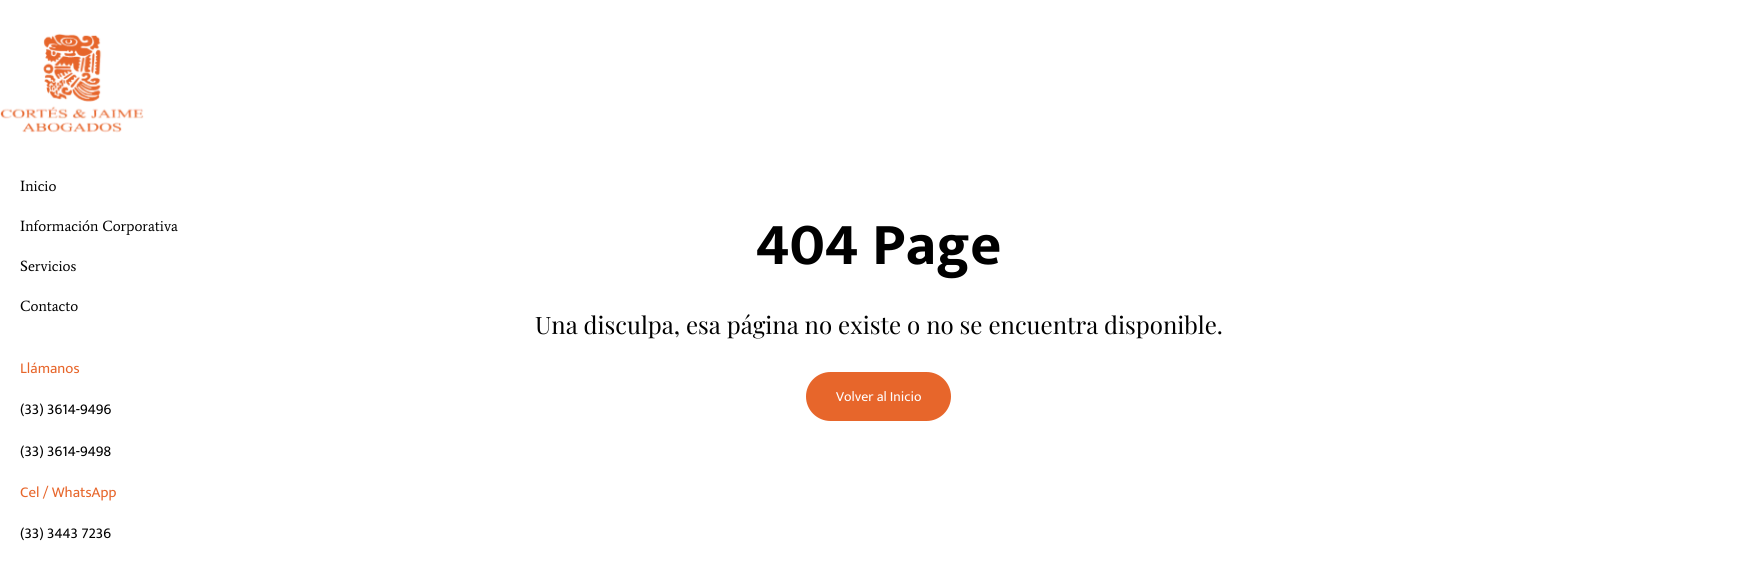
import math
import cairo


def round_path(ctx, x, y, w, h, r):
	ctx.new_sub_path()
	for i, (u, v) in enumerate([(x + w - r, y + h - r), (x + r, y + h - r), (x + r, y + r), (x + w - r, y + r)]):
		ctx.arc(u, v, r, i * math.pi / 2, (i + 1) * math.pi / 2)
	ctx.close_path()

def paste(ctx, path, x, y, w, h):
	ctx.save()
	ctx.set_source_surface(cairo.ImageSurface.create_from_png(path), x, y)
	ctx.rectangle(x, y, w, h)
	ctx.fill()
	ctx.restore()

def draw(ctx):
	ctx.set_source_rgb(1, 1, 1)
	ctx.paint()
	paste(ctx, 'media/1.png', 0, 33, 144, 100)
	ctx.select_font_face('Average')
	ctx.set_font_size(15)
	ctx.set_source_rgb(0, 0, 0)
	for x, y, s in [
		(20, 191, 'Inicio'),
		(20, 231, 'Información Corporativa'),
		(20, 271, 'Servicios'),
		(20, 311, 'Contacto'),
	]:
		ctx.move_to(x, y)
		ctx.show_text(s)
	ctx.select_font_face('Mukta')
	ctx.set_source_rgb(0.906, 0.4, 0.169)
	ctx.move_to(20, 373)
	ctx.show_text('Llámanos')
	ctx.set_source_rgb(0, 0, 0)
	ctx.move_to(20, 414)
	ctx.show_text('(33) 3614-9496')
	ctx.move_to(20, 456)
	ctx.show_text('(33) 3614-9498')
	ctx.set_source_rgb(0.906, 0.4, 0.169)
	ctx.move_to(20, 497)
	ctx.show_text('Cel / WhatsApp')
	ctx.set_source_rgb(0, 0, 0)
	ctx.move_to(20, 538)
	ctx.show_text('(33) 3443 7236')
	ctx.select_font_face('Mukta', cairo.FONT_SLANT_NORMAL, cairo.FONT_WEIGHT_BOLD)
	ctx.set_font_size(60)
	ctx.move_to(756, 264)
	ctx.show_text('404 Page')
	ctx.select_font_face('Playfair Display')
	ctx.set_font_size(24)
	ctx.move_to(535, 334)
	ctx.show_text('Una disculpa, esa página no existe o no se encuentra disponible.')
	ctx.set_source_rgb(0.906, 0.4, 0.169)
	round_path(ctx, 806, 372, 145, 49, 24.5)
	ctx.fill()
	ctx.select_font_face('Mukta')
	ctx.set_font_size(14)
	ctx.set_source_rgb(1, 1, 1)
	ctx.move_to(836, 401)
	ctx.show_text('Volver al Inicio')


surface = cairo.ImageSurface(cairo.FORMAT_RGB24, 1757, 565)
ctx = cairo.Context(surface)
options = cairo.FontOptions()
options.set_hint_metrics(cairo.HINT_METRICS_OFF)
options.set_hint_style(cairo.HINT_STYLE_NONE)
ctx.set_font_options(options)
ctx.set_miter_limit(4)
draw(ctx)
surface.write_to_png('image.png')
